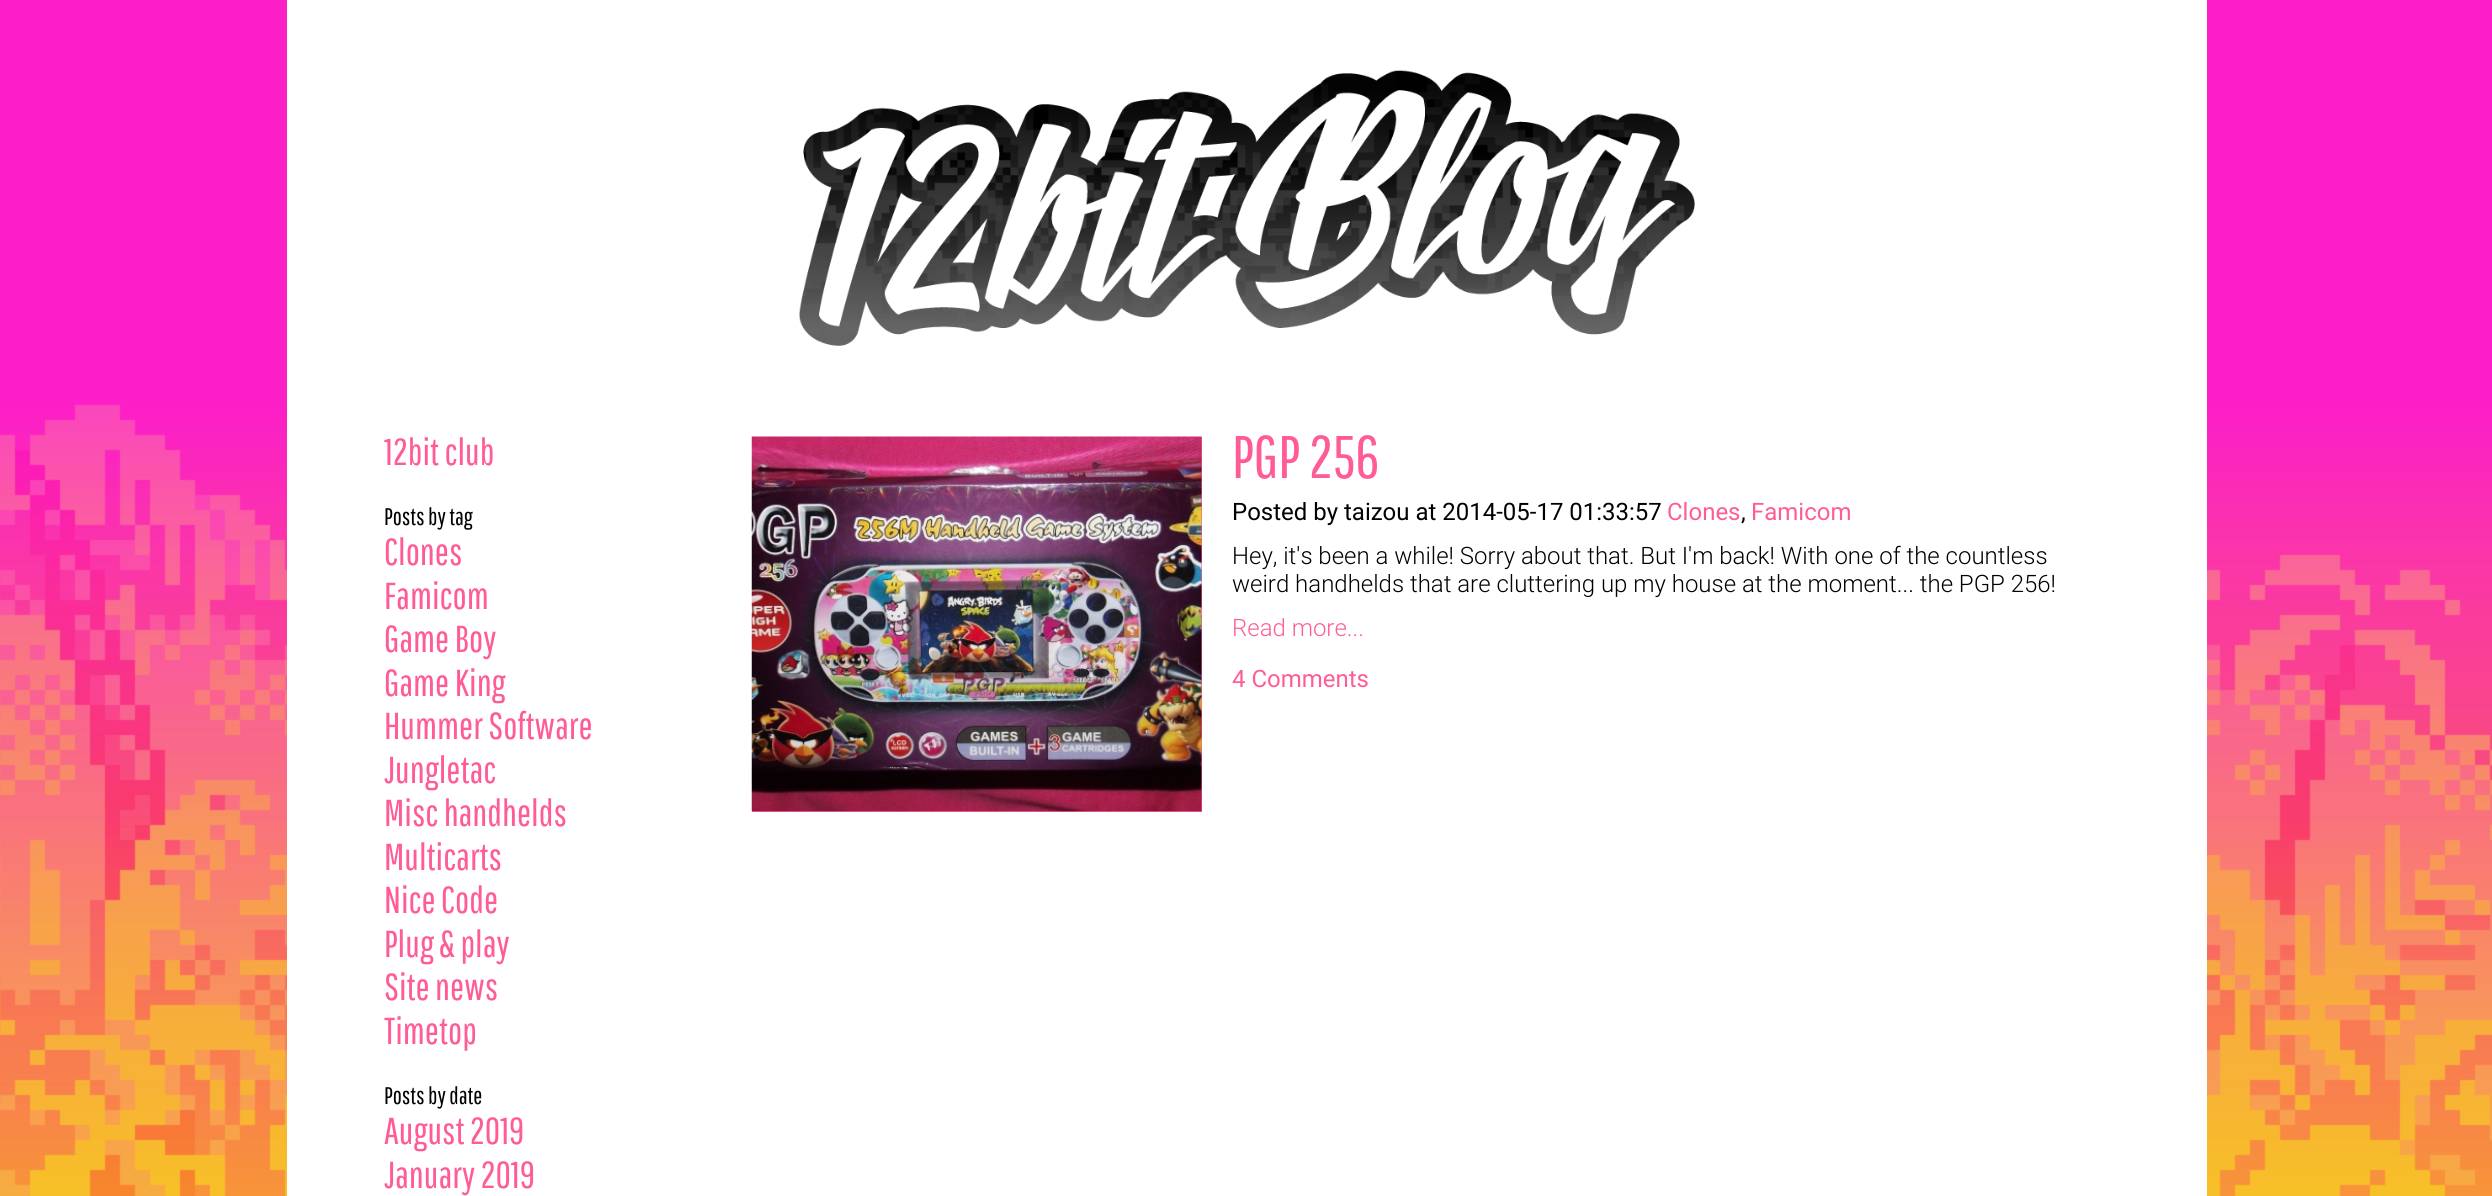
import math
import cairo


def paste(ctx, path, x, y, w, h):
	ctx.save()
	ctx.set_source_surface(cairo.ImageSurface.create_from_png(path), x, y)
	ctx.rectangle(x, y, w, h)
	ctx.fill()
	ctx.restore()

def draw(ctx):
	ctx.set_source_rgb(1, 1, 1)
	ctx.paint()
	paste(ctx, 'media/1.png', 0, 0, 2492, 1196)
	ctx.set_source_rgb(1, 1, 1)
	ctx.rectangle(287, 0, 1920, 1196)
	ctx.fill()
	paste(ctx, 'media/2.png', 799, 70, 896, 276)
	ctx.select_font_face('Pathway Gothic One')
	ctx.set_font_size(37.5)
	ctx.set_source_rgb(1, 0.361, 0.592)
	ctx.move_to(384, 465)
	ctx.show_text('12bit club')
	ctx.set_font_size(24)
	ctx.set_source_rgb(0, 0, 0)
	ctx.move_to(384, 525)
	ctx.show_text('Posts by tag')
	ctx.set_font_size(37.5)
	ctx.set_source_rgb(1, 0.361, 0.592)
	for x, y, s in [
		(384, 565, 'Clones'),
		(384, 609, 'Famicom'),
		(384, 652, 'Game Boy'),
		(384, 696, 'Game King'),
		(384, 739, 'Hummer Software'),
		(384, 783, 'Jungletac'),
		(384, 826, 'Misc handhelds'),
		(384, 870, 'Multicarts'),
		(384, 913, 'Nice Code'),
		(384, 957, 'Plug & play'),
		(384, 1000, 'Site news'),
		(384, 1044, 'Timetop'),
	]:
		ctx.move_to(x, y)
		ctx.show_text(s)
	ctx.set_font_size(24)
	ctx.set_source_rgb(0, 0, 0)
	ctx.move_to(384, 1104)
	ctx.show_text('Posts by date')
	ctx.set_font_size(37.5)
	ctx.set_source_rgb(1, 0.361, 0.592)
	ctx.move_to(384, 1144)
	ctx.show_text('August 2019')
	ctx.move_to(384, 1188)
	ctx.show_text('January 2019')
	ctx.rectangle(752, 437, 450, 375)
	ctx.fill()
	paste(ctx, 'media/3.png', 751, 436, 451, 376)
	ctx.set_font_size(60)
	ctx.move_to(1232, 478)
	ctx.show_text('PGP 256')
	ctx.select_font_face('Roboto')
	ctx.set_font_size(24)
	ctx.set_source_rgb(0, 0, 0)
	ctx.move_to(1232, 520)
	ctx.show_text('Posted by taizou at 2014-05-17 01:33:57')
	ctx.set_source_rgb(1, 0.361, 0.592)
	ctx.move_to(1667, 520)
	ctx.show_text('Clones')
	ctx.set_source_rgb(0, 0, 0)
	ctx.move_to(1741, 520)
	ctx.show_text(',')
	ctx.set_source_rgb(1, 0.361, 0.592)
	ctx.move_to(1751, 520)
	ctx.show_text('Famicom')
	ctx.select_font_face('Roboto Light')
	ctx.set_source_rgb(0, 0, 0)
	ctx.move_to(1232, 564)
	ctx.show_text('Hey, it\'s been a while! Sorry about that. But I\'m back! With one of the countless')
	ctx.move_to(1232, 592)
	ctx.show_text('weird handhelds that are cluttering up my house at the moment... the PGP 256!')
	ctx.set_source_rgb(1, 0.361, 0.592)
	ctx.move_to(1232, 636)
	ctx.show_text('Read more...')
	ctx.select_font_face('Roboto')
	ctx.move_to(1232, 687)
	ctx.show_text('4 Comments')


surface = cairo.ImageSurface(cairo.FORMAT_RGB24, 2492, 1196)
ctx = cairo.Context(surface)
options = cairo.FontOptions()
options.set_hint_metrics(cairo.HINT_METRICS_OFF)
options.set_hint_style(cairo.HINT_STYLE_NONE)
ctx.set_font_options(options)
ctx.set_miter_limit(4)
draw(ctx)
surface.write_to_png('image.png')
